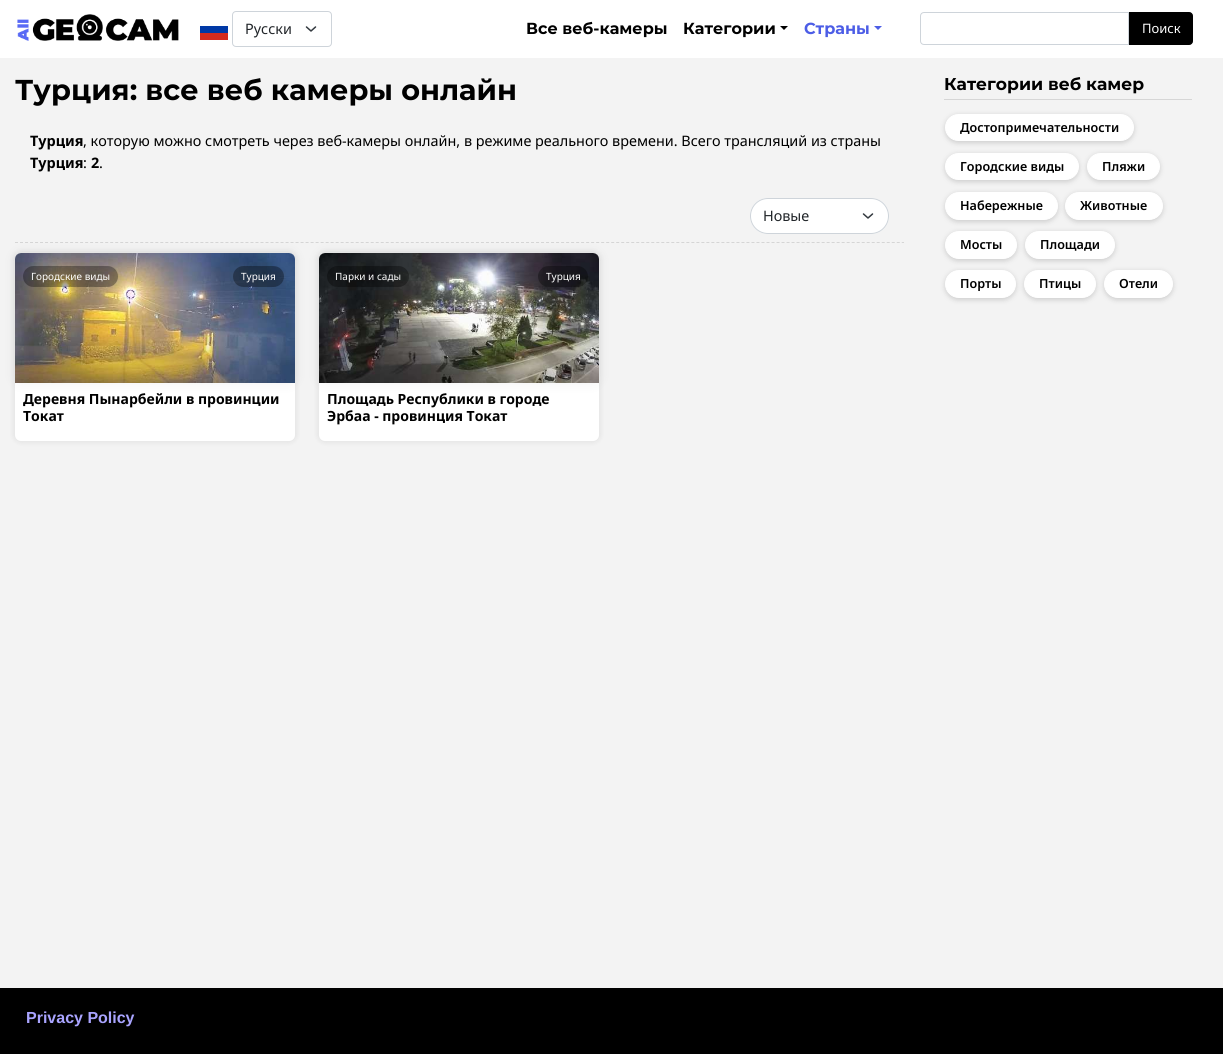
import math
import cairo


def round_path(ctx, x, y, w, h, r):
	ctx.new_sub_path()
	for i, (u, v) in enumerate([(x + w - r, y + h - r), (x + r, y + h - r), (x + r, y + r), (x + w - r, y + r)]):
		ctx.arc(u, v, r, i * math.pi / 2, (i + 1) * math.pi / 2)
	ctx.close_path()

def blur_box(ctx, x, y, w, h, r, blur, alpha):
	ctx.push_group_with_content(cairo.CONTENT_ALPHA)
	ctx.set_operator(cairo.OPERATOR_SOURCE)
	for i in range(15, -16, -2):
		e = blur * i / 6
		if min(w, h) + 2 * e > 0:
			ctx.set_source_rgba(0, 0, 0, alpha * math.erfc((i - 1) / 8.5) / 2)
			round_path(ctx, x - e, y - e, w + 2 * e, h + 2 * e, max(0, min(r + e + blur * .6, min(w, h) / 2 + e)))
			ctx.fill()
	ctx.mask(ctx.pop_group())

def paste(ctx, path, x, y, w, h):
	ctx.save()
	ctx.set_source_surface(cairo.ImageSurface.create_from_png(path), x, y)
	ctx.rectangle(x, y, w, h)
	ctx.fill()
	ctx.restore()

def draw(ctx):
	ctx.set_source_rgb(0.953, 0.953, 0.953)
	ctx.paint()
	ctx.set_source_rgb(1, 1, 1)
	ctx.rectangle(0, 0, 1223, 58)
	ctx.fill()
	paste(ctx, 'media/1.png', 17, 14, 162, 27)
	ctx.set_source_rgb(0, 0.224, 0.651)
	ctx.rectangle(200, 26, 28, 7)
	ctx.fill()
	ctx.set_source_rgb(0.835, 0.169, 0.118)
	ctx.rectangle(200, 33, 28, 7)
	ctx.fill()
	ctx.new_path()
	ctx.move_to(306.5, 27)
	ctx.line_to(311, 31)
	ctx.line_to(315.5, 27)
	ctx.set_source_rgb(0.204, 0.227, 0.251)
	ctx.set_line_width(1.5)
	ctx.set_line_cap(cairo.LINE_CAP_ROUND)
	ctx.set_line_join(cairo.LINE_JOIN_ROUND)
	ctx.stroke()
	round_path(ctx, 232.5, 11.5, 99, 35, 3.5)
	ctx.set_source_rgb(0.808, 0.831, 0.855)
	ctx.set_line_width(1)
	ctx.set_line_cap(cairo.LINE_CAP_BUTT)
	ctx.set_line_join(cairo.LINE_JOIN_MITER)
	ctx.stroke()
	ctx.select_font_face('Noto Sans')
	ctx.set_font_size(14.4)
	ctx.set_source_rgb(0.129, 0.145, 0.161)
	ctx.move_to(245, 34)
	ctx.show_text('Русски')
	ctx.select_font_face('Montserrat', cairo.FONT_SLANT_NORMAL, cairo.FONT_WEIGHT_BOLD)
	ctx.set_font_size(16)
	ctx.set_source_rgb(0, 0, 0)
	ctx.move_to(526, 34)
	ctx.show_text('Все веб-камеры')
	ctx.move_to(683, 34)
	ctx.show_text('Категории')
	ctx.new_path()
	ctx.move_to(780, 26)
	ctx.line_to(788, 26)
	ctx.line_to(784, 30)
	ctx.close_path()
	ctx.fill()
	ctx.set_source_rgb(0.298, 0.365, 0.902)
	ctx.move_to(804, 34)
	ctx.show_text('Страны')
	ctx.new_path()
	ctx.move_to(874, 26)
	ctx.line_to(882, 26)
	ctx.line_to(878, 30)
	ctx.close_path()
	ctx.fill()
	ctx.new_path()
	ctx.move_to(924, 12.5)
	ctx.line_to(1128.5, 12.5)
	ctx.line_to(1128.5, 44.5)
	ctx.line_to(924, 44.5)
	ctx.curve_to(922, 44.5, 920.5, 43, 920.5, 41)
	ctx.line_to(920.5, 16)
	ctx.curve_to(920.5, 14, 922, 12.5, 924, 12.5)
	ctx.close_path()
	ctx.set_source_rgb(0.808, 0.831, 0.855)
	ctx.stroke()
	ctx.set_source_rgb(0, 0, 0)
	ctx.new_path()
	ctx.move_to(1129.5, 12.5)
	ctx.line_to(1189, 12.5)
	ctx.curve_to(1191, 12.5, 1192.5, 14, 1192.5, 16)
	ctx.line_to(1192.5, 41)
	ctx.curve_to(1192.5, 43, 1191, 44.5, 1189, 44.5)
	ctx.line_to(1129.5, 44.5)
	ctx.close_path()
	ctx.fill_preserve()
	ctx.stroke()
	ctx.select_font_face('Noto Sans')
	ctx.set_font_size(13)
	ctx.set_source_rgb(1, 1, 1)
	ctx.move_to(1142, 33)
	ctx.show_text('Поиск')
	ctx.select_font_face('Montserrat', cairo.FONT_SLANT_NORMAL, cairo.FONT_WEIGHT_BOLD)
	ctx.set_font_size(28.75)
	ctx.set_source_rgb(0, 0, 0)
	ctx.move_to(15, 100)
	ctx.show_text('Турция: все веб камеры онлайн')
	ctx.select_font_face('Noto Sans', cairo.FONT_SLANT_NORMAL, cairo.FONT_WEIGHT_BOLD)
	ctx.set_font_size(14.4)
	ctx.move_to(30, 146)
	ctx.show_text('Турция')
	ctx.select_font_face('Noto Sans')
	ctx.move_to(83, 146)
	ctx.show_text(', которую можно смотреть через веб-камеры онлайн, в режиме реального времени. Всего трансляций из страны')
	ctx.select_font_face('Noto Sans', cairo.FONT_SLANT_NORMAL, cairo.FONT_WEIGHT_BOLD)
	ctx.move_to(30, 168)
	ctx.show_text('Турция')
	ctx.select_font_face('Noto Sans')
	ctx.move_to(83, 168)
	ctx.show_text(':')
	ctx.select_font_face('Noto Sans', cairo.FONT_SLANT_NORMAL, cairo.FONT_WEIGHT_BOLD)
	ctx.move_to(91, 168)
	ctx.show_text('2')
	ctx.select_font_face('Noto Sans')
	ctx.move_to(99, 168)
	ctx.show_text('.')
	ctx.new_path()
	ctx.move_to(15, 242.5)
	ctx.line_to(904, 242.5)
	ctx.set_source_rgb(0.835, 0.835, 0.835)
	ctx.set_dash([3, 2.01])
	ctx.stroke()
	ctx.set_source_rgb(1, 1, 1)
	round_path(ctx, 750, 198, 139, 36, 18)
	ctx.fill()
	ctx.new_path()
	ctx.move_to(863.5, 214)
	ctx.line_to(868, 218)
	ctx.line_to(872.5, 214)
	ctx.set_source_rgb(0.204, 0.227, 0.251)
	ctx.set_line_width(1.5)
	ctx.set_line_cap(cairo.LINE_CAP_ROUND)
	ctx.set_line_join(cairo.LINE_JOIN_ROUND)
	ctx.set_dash([])
	ctx.stroke()
	round_path(ctx, 750.5, 198.5, 138, 35, 17.5)
	ctx.set_source_rgb(0.808, 0.831, 0.855)
	ctx.set_line_width(1)
	ctx.set_line_cap(cairo.LINE_CAP_BUTT)
	ctx.set_line_join(cairo.LINE_JOIN_MITER)
	ctx.stroke()
	ctx.set_source_rgb(0.129, 0.145, 0.161)
	ctx.move_to(763, 221)
	ctx.show_text('Новые')
	ctx.set_source_rgb(0, 0, 0)
	blur_box(ctx, 14, 252, 282, 190, 7, 3, 0.08)
	ctx.set_source_rgb(1, 1, 1)
	round_path(ctx, 15, 253, 280, 188, 6)
	ctx.fill()
	ctx.set_source_rgb(0, 0, 0)
	blur_box(ctx, 14, 252, 282, 132, 7, 6, 0.05)
	paste(ctx, 'media/2.png', 15, 253, 280, 130)
	ctx.set_source_rgba(0, 0, 0, 0.33)
	round_path(ctx, 23, 266, 95, 21, 10.5)
	ctx.fill()
	ctx.set_font_size(10)
	ctx.set_source_rgb(1, 1, 1)
	ctx.move_to(31, 280)
	ctx.show_text('Городские виды')
	ctx.set_source_rgba(0, 0, 0, 0.33)
	round_path(ctx, 233, 266, 51, 21, 10.5)
	ctx.fill()
	ctx.set_source_rgb(1, 1, 1)
	ctx.move_to(241, 280)
	ctx.show_text('Турция')
	ctx.select_font_face('Noto Sans', cairo.FONT_SLANT_NORMAL, cairo.FONT_WEIGHT_BOLD)
	ctx.set_font_size(14)
	ctx.set_source_rgb(0, 0, 0)
	ctx.move_to(23, 404)
	ctx.show_text('Деревня Пынарбейли в провинции')
	ctx.move_to(23, 421)
	ctx.show_text('Токат')
	ctx.set_source_rgb(0, 0, 0)
	blur_box(ctx, 318, 252, 282, 190, 7, 3, 0.08)
	ctx.set_source_rgb(1, 1, 1)
	round_path(ctx, 319, 253, 280, 188, 6)
	ctx.fill()
	ctx.set_source_rgb(0, 0, 0)
	blur_box(ctx, 318, 252, 282, 132, 7, 6, 0.05)
	paste(ctx, 'media/3.png', 319, 253, 280, 130)
	ctx.set_source_rgba(0, 0, 0, 0.33)
	round_path(ctx, 327, 266, 82, 21, 10.5)
	ctx.fill()
	ctx.select_font_face('Noto Sans')
	ctx.set_font_size(10)
	ctx.set_source_rgb(1, 1, 1)
	ctx.move_to(335, 280)
	ctx.show_text('Парки и сады')
	ctx.set_source_rgba(0, 0, 0, 0.33)
	round_path(ctx, 538, 266, 50, 21, 10.5)
	ctx.fill()
	ctx.set_source_rgb(1, 1, 1)
	ctx.move_to(546, 280)
	ctx.show_text('Турция')
	ctx.select_font_face('Noto Sans', cairo.FONT_SLANT_NORMAL, cairo.FONT_WEIGHT_BOLD)
	ctx.set_font_size(14)
	ctx.set_source_rgb(0, 0, 0)
	ctx.move_to(327, 404)
	ctx.show_text('Площадь Республики в городе')
	ctx.move_to(327, 421)
	ctx.show_text('Эрбаа - провинция Токат')
	ctx.set_source_rgb(0.839, 0.839, 0.839)
	ctx.rectangle(944, 99, 248, 1)
	ctx.fill()
	ctx.select_font_face('Montserrat', cairo.FONT_SLANT_NORMAL, cairo.FONT_WEIGHT_BOLD)
	ctx.set_font_size(17.1)
	ctx.set_source_rgb(0, 0, 0)
	ctx.move_to(944, 90)
	ctx.show_text('Категории веб камер')
	ctx.set_source_rgb(0.431, 0.431, 0.431)
	blur_box(ctx, 945, 115, 189, 28, 14, 2.5, 0.28)
	ctx.set_source_rgb(1, 1, 1)
	round_path(ctx, 945.5, 114.5, 188, 26, 13)
	ctx.fill_preserve()
	ctx.stroke()
	ctx.select_font_face('Noto Sans SemiBold')
	ctx.set_font_size(12.6)
	ctx.set_source_rgb(0, 0, 0)
	ctx.move_to(960, 132)
	ctx.show_text('Достопримечательности')
	ctx.set_source_rgb(0.431, 0.431, 0.431)
	blur_box(ctx, 945, 154, 134, 28, 14, 2.5, 0.28)
	ctx.set_source_rgb(1, 1, 1)
	round_path(ctx, 945.5, 153.5, 133, 26, 13)
	ctx.fill_preserve()
	ctx.stroke()
	ctx.set_source_rgb(0, 0, 0)
	ctx.move_to(960, 171)
	ctx.show_text('Городские виды')
	ctx.set_source_rgb(0.431, 0.431, 0.431)
	blur_box(ctx, 1087, 154, 73, 28, 14, 2.5, 0.28)
	ctx.set_source_rgb(1, 1, 1)
	round_path(ctx, 1087.5, 153.5, 72, 26, 13)
	ctx.fill_preserve()
	ctx.stroke()
	ctx.set_source_rgb(0, 0, 0)
	ctx.move_to(1102, 171)
	ctx.show_text('Пляжи')
	ctx.set_source_rgb(0.431, 0.431, 0.431)
	blur_box(ctx, 945, 193, 113, 29, 14.5, 2.5, 0.28)
	ctx.set_source_rgb(1, 1, 1)
	round_path(ctx, 945.5, 192.5, 112, 27, 13.5)
	ctx.fill_preserve()
	ctx.stroke()
	ctx.set_source_rgb(0, 0, 0)
	ctx.move_to(960, 210)
	ctx.show_text('Набережные')
	ctx.set_source_rgb(0.431, 0.431, 0.431)
	blur_box(ctx, 1065, 193, 98, 29, 14.5, 2.5, 0.28)
	ctx.set_source_rgb(1, 1, 1)
	round_path(ctx, 1065.5, 192.5, 97, 27, 13.5)
	ctx.fill_preserve()
	ctx.stroke()
	ctx.set_source_rgb(0, 0, 0)
	ctx.move_to(1080, 210)
	ctx.show_text('Животные')
	ctx.set_source_rgb(0.431, 0.431, 0.431)
	blur_box(ctx, 945, 232, 72, 29, 14.5, 2.5, 0.28)
	ctx.set_source_rgb(1, 1, 1)
	round_path(ctx, 945.5, 231.5, 71, 27, 13.5)
	ctx.fill_preserve()
	ctx.stroke()
	ctx.set_source_rgb(0, 0, 0)
	ctx.move_to(960, 249)
	ctx.show_text('Мосты')
	ctx.set_source_rgb(0.431, 0.431, 0.431)
	blur_box(ctx, 1025, 232, 90, 29, 14.5, 2.5, 0.28)
	ctx.set_source_rgb(1, 1, 1)
	round_path(ctx, 1025.5, 231.5, 89, 27, 13.5)
	ctx.fill_preserve()
	ctx.stroke()
	ctx.set_source_rgb(0, 0, 0)
	ctx.move_to(1040, 249)
	ctx.show_text('Площади')
	ctx.set_source_rgb(0.431, 0.431, 0.431)
	blur_box(ctx, 945, 271, 71, 29, 14.5, 2.5, 0.28)
	ctx.set_source_rgb(1, 1, 1)
	round_path(ctx, 945.5, 270.5, 70, 27, 13.5)
	ctx.fill_preserve()
	ctx.stroke()
	ctx.set_source_rgb(0, 0, 0)
	ctx.move_to(960, 288)
	ctx.show_text('Порты')
	ctx.set_source_rgb(0.431, 0.431, 0.431)
	blur_box(ctx, 1024, 271, 72, 29, 14.5, 2.5, 0.28)
	ctx.set_source_rgb(1, 1, 1)
	round_path(ctx, 1024.5, 270.5, 71, 27, 13.5)
	ctx.fill_preserve()
	ctx.stroke()
	ctx.set_source_rgb(0, 0, 0)
	ctx.move_to(1039, 288)
	ctx.show_text('Птицы')
	ctx.set_source_rgb(0.431, 0.431, 0.431)
	blur_box(ctx, 1104, 271, 69, 29, 14.5, 2.5, 0.28)
	ctx.set_source_rgb(1, 1, 1)
	round_path(ctx, 1104.5, 270.5, 68, 27, 13.5)
	ctx.fill_preserve()
	ctx.stroke()
	ctx.set_source_rgb(0, 0, 0)
	ctx.move_to(1119, 288)
	ctx.show_text('Отели')
	ctx.rectangle(0, 988, 1223, 66)
	ctx.fill()
	ctx.select_font_face('Liberation Sans', cairo.FONT_SLANT_NORMAL, cairo.FONT_WEIGHT_BOLD)
	ctx.set_font_size(16)
	ctx.set_source_rgb(0.663, 0.643, 1)
	ctx.move_to(26, 1023)
	ctx.show_text('Privacy Policy')


surface = cairo.ImageSurface(cairo.FORMAT_RGB24, 1223, 1054)
ctx = cairo.Context(surface)
options = cairo.FontOptions()
options.set_hint_metrics(cairo.HINT_METRICS_OFF)
options.set_hint_style(cairo.HINT_STYLE_NONE)
ctx.set_font_options(options)
ctx.set_miter_limit(4)
draw(ctx)
surface.write_to_png('image.png')
